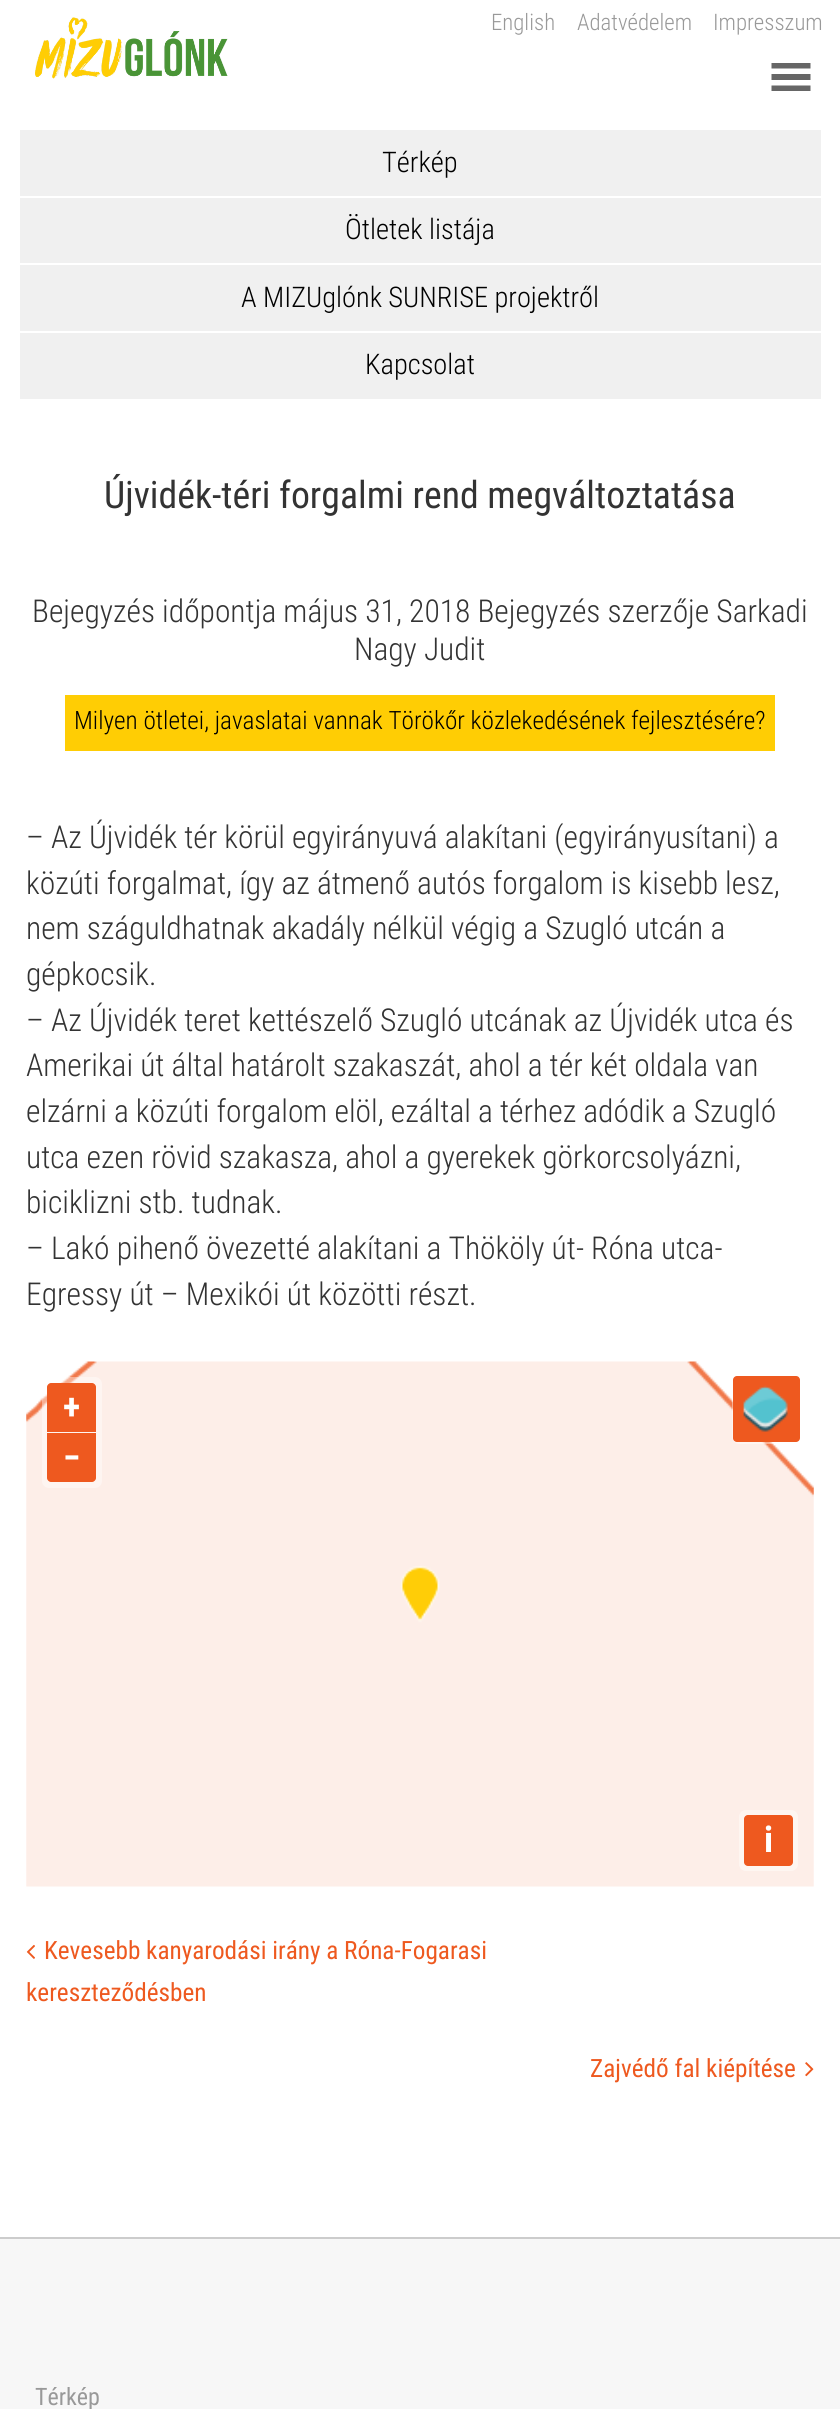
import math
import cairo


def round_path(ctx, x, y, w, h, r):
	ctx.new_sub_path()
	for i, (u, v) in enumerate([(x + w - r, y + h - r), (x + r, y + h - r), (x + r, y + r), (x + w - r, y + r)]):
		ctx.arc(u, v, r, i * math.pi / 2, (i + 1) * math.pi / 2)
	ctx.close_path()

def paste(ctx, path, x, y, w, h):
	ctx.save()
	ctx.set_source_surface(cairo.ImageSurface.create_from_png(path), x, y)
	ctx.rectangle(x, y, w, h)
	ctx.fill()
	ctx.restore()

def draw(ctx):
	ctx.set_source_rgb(1, 1, 1)
	ctx.paint()
	paste(ctx, 'media/1.png', 35, 17, 193, 62)
	ctx.select_font_face('Roboto Condensed Light')
	ctx.set_font_size(22.75)
	ctx.set_source_rgb(0.6, 0.6, 0.6)
	for x, y, s in [
		(491, 30, 'English'),
		(577, 30, 'Adatvédelem'),
		(713, 30, 'Impresszum'),
	]:
		ctx.move_to(x, y)
		ctx.show_text(s)
	ctx.set_source_rgb(0.4, 0.4, 0.4)
	ctx.new_path()
	ctx.move_to(810.5, 68.5)
	ctx.line_to(810.5, 63)
	ctx.line_to(771.5, 63)
	ctx.line_to(771.5, 68.5)
	ctx.close_path()
	ctx.move_to(810.5, 80)
	ctx.line_to(810.5, 74)
	ctx.line_to(771.5, 74)
	ctx.line_to(771.5, 80)
	ctx.close_path()
	ctx.move_to(810.5, 91)
	ctx.line_to(810.5, 85.5)
	ctx.line_to(771.5, 85.5)
	ctx.line_to(771.5, 91)
	ctx.close_path()
	ctx.fill()
	ctx.set_source_rgb(0.941, 0.941, 0.941)
	ctx.rectangle(20, 130, 801, 66)
	ctx.fill()
	ctx.set_font_size(28.4)
	ctx.set_source_rgb(0, 0, 0)
	ctx.move_to(382, 172)
	ctx.show_text('Térkép')
	ctx.set_source_rgb(0.941, 0.941, 0.941)
	ctx.rectangle(20, 198, 801, 65)
	ctx.fill()
	ctx.set_source_rgb(0, 0, 0)
	ctx.move_to(345, 239)
	ctx.show_text('Ötletek listája')
	ctx.set_source_rgb(0.941, 0.941, 0.941)
	ctx.rectangle(20, 265, 801, 66)
	ctx.fill()
	ctx.set_source_rgb(0, 0, 0)
	ctx.move_to(241, 307)
	ctx.show_text('A MIZUglónk SUNRISE projektről')
	ctx.set_source_rgb(0.941, 0.941, 0.941)
	ctx.rectangle(20, 333, 801, 66)
	ctx.fill()
	ctx.set_source_rgb(0, 0, 0)
	ctx.move_to(365, 374)
	ctx.show_text('Kapcsolat')
	ctx.select_font_face('Roboto Condensed')
	ctx.set_font_size(37.75)
	ctx.set_source_rgb(0.2, 0.2, 0.2)
	ctx.move_to(104, 508)
	ctx.show_text('Újvidék-téri forgalmi rend megváltoztatása')
	ctx.select_font_face('Roboto Condensed Light')
	ctx.set_font_size(31.5)
	ctx.move_to(32, 622)
	ctx.show_text('Bejegyzés időpontja május 31, 2018 Bejegyzés szerzője Sarkadi')
	ctx.move_to(354, 660)
	ctx.show_text('Nagy Judit')
	ctx.set_source_rgb(1, 0.804, 0.016)
	ctx.rectangle(65, 695, 710, 56)
	ctx.fill()
	ctx.set_font_size(25.2)
	ctx.set_source_rgb(0, 0, 0)
	ctx.move_to(74, 729)
	ctx.show_text('Milyen ötletei, javaslatai vannak Törökőr közlekedésének fejlesztésére?')
	ctx.set_font_size(31.5)
	ctx.set_source_rgb(0.2, 0.2, 0.2)
	for x, y, s in [
		(26, 848, '– Az Újvidék tér körül egyirányuvá alakítani (egyirányusítani) a'),
		(26, 894, 'közúti forgalmat, így az átmenő autós forgalom is kisebb lesz,'),
		(26, 939, 'nem száguldhatnak akadály nélkül végig a Szugló utcán a'),
		(26, 985, 'gépkocsik.'),
		(26, 1031, '– Az Újvidék teret kettészelő Szugló utcának az Újvidék utca és'),
		(26, 1076, 'Amerikai út által határolt szakaszát, ahol a tér két oldala van'),
		(26, 1122, 'elzárni a közúti forgalom elöl, ezáltal a térhez adódik a Szugló'),
		(26, 1168, 'utca ezen rövid szakasza, ahol a gyerekek görkorcsolyázni,'),
		(26, 1213, 'biciklizni stb. tudnak.'),
		(26, 1259, '– Lakó pihenő övezetté alakítani a Thököly út- Róna utca-'),
		(26, 1305, 'Egressy út – Mexikói út közötti részt.'),
	]:
		ctx.move_to(x, y)
		ctx.show_text(s)
	paste(ctx, 'media/2.png', 26, 1361, 788, 526)
	ctx.set_source_rgba(1, 1, 1, 0.4)
	round_path(ctx, 42, 1377, 60, 111, 7)
	ctx.fill()
	ctx.set_source_rgb(0.933, 0.349, 0.122)
	ctx.new_path()
	ctx.move_to(51, 1383)
	ctx.line_to(92, 1383)
	ctx.curve_to(94, 1383, 96, 1385, 96, 1387)
	ctx.line_to(96, 1432)
	ctx.line_to(47, 1432)
	ctx.line_to(47, 1387)
	ctx.curve_to(47, 1385, 49, 1383, 51, 1383)
	ctx.close_path()
	ctx.fill()
	ctx.select_font_face('Roboto Condensed', cairo.FONT_SLANT_NORMAL, cairo.FONT_WEIGHT_BOLD)
	ctx.set_font_size(36)
	ctx.set_source_rgb(1, 1, 1)
	ctx.move_to(63, 1419)
	ctx.show_text('+')
	ctx.set_source_rgb(0.933, 0.349, 0.122)
	ctx.new_path()
	ctx.move_to(47, 1433)
	ctx.line_to(96, 1433)
	ctx.line_to(96, 1478)
	ctx.curve_to(96, 1480, 94, 1482, 92, 1482)
	ctx.line_to(51, 1482)
	ctx.curve_to(49, 1482, 47, 1480, 47, 1478)
	ctx.close_path()
	ctx.fill()
	ctx.set_source_rgb(1, 1, 1)
	ctx.move_to(63, 1470)
	ctx.show_text('−')
	ctx.set_source_rgba(1, 1, 1, 0.4)
	round_path(ctx, 732, 1374, 70, 70, 7)
	ctx.fill()
	ctx.set_source_rgb(0.933, 0.349, 0.122)
	round_path(ctx, 733, 1376, 67, 66, 4)
	ctx.fill()
	paste(ctx, 'media/3.png', 743, 1385, 45, 47)
	ctx.set_source_rgb(0.996, 0.961, 0.945)
	round_path(ctx, 739, 1810, 59, 61, 7)
	ctx.fill()
	ctx.set_source_rgb(0.933, 0.349, 0.122)
	round_path(ctx, 744, 1815, 49, 51, 4)
	ctx.fill()
	ctx.set_source_rgb(1, 1, 1)
	ctx.move_to(764, 1852)
	ctx.show_text('i')
	paste(ctx, 'media/4.png', 26, 1944, 9, 15)
	ctx.select_font_face('Roboto Condensed')
	ctx.set_font_size(25.2)
	ctx.set_source_rgb(0.933, 0.349, 0.122)
	for x, y, s in [
		(44, 1959, 'Kevesebb kanyarodási irány a Róna-Fogarasi'),
		(26, 2001, 'kereszteződésben'),
		(590, 2077, 'Zajvédő fal kiépítése'),
	]:
		ctx.move_to(x, y)
		ctx.show_text(s)
	paste(ctx, 'media/5.png', 805, 2062, 9, 15)
	ctx.set_source_rgb(0.965, 0.965, 0.965)
	ctx.rectangle(0, 2239, 840, 170)
	ctx.fill()
	ctx.set_source_rgb(0.8, 0.8, 0.8)
	ctx.rectangle(0, 2237, 840, 2)
	ctx.fill()
	ctx.set_font_size(24)
	ctx.set_source_rgb(0.6, 0.6, 0.6)
	ctx.move_to(35, 2405)
	ctx.show_text('Térkép')


surface = cairo.ImageSurface(cairo.FORMAT_RGB24, 840, 2409)
ctx = cairo.Context(surface)
options = cairo.FontOptions()
options.set_hint_metrics(cairo.HINT_METRICS_OFF)
options.set_hint_style(cairo.HINT_STYLE_NONE)
ctx.set_font_options(options)
ctx.set_miter_limit(4)
draw(ctx)
surface.write_to_png('image.png')
